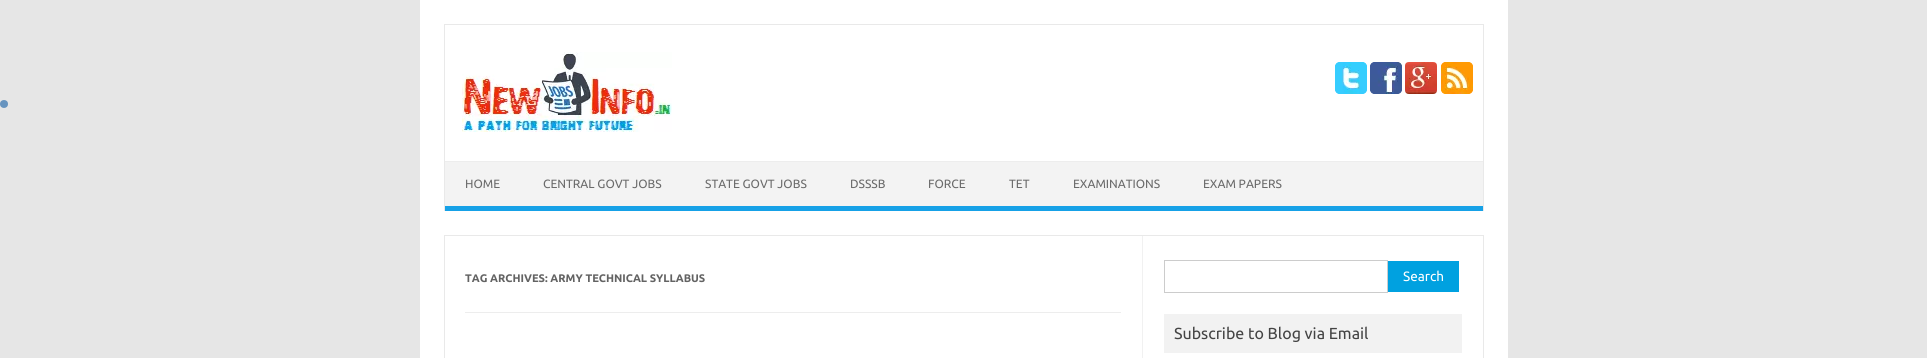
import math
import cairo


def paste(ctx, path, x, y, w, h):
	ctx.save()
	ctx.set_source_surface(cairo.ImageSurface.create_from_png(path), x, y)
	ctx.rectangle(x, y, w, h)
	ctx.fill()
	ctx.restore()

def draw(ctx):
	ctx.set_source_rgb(0.902, 0.902, 0.902)
	ctx.paint()
	ctx.set_source_rgb(0.404, 0.58, 0.749)
	ctx.arc(4, 104, 4, 0, 2 * math.pi)
	ctx.fill()
	ctx.set_source_rgb(1, 1, 1)
	ctx.rectangle(420, 0, 1088, 358)
	ctx.fill()
	ctx.set_source_rgb(0.914, 0.914, 0.914)
	ctx.rectangle(444, 24, 1040, 1)
	ctx.rectangle(1483, 24, 1, 187)
	ctx.rectangle(444, 24, 1, 187)
	ctx.fill()
	paste(ctx, 'media/1.png', 462, 52, 210, 80)
	paste(ctx, 'media/2.png', 1335, 62, 32, 32)
	paste(ctx, 'media/3.png', 1370, 62, 32, 32)
	paste(ctx, 'media/4.png', 1405, 62, 32, 32)
	paste(ctx, 'media/5.png', 1441, 62, 32, 32)
	ctx.set_source_rgb(0.953, 0.953, 0.953)
	ctx.rectangle(445, 162, 1038, 44)
	ctx.fill()
	ctx.set_source_rgb(0.929, 0.929, 0.929)
	ctx.rectangle(445, 161, 1038, 1)
	ctx.fill()
	ctx.set_source_rgb(0.086, 0.631, 0.906)
	ctx.rectangle(445, 206, 1038, 5)
	ctx.fill()
	ctx.select_font_face('Ubuntu')
	ctx.set_font_size(12)
	ctx.set_source_rgb(0.416, 0.416, 0.416)
	for x, y, s in [
		(465, 188, 'HOME'),
		(543, 188, 'CENTRAL GOVT JOBS'),
		(705, 188, 'STATE GOVT JOBS'),
		(850, 188, 'DSSSB'),
		(928, 188, 'FORCE'),
		(1009, 188, 'TET'),
		(1073, 188, 'EXAMINATIONS'),
		(1203, 188, 'EXAM PAPERS'),
	]:
		ctx.move_to(x, y)
		ctx.show_text(s)
	ctx.rectangle(444.5, 235.5, 1039, 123)
	ctx.set_source_rgb(0.914, 0.914, 0.914)
	ctx.set_line_width(1)
	ctx.stroke()
	ctx.set_source_rgb(0.945, 0.945, 0.945)
	ctx.rectangle(1142, 236, 1, 122)
	ctx.fill()
	ctx.set_source_rgb(0.929, 0.929, 0.929)
	ctx.rectangle(465, 312, 656, 1)
	ctx.fill()
	ctx.select_font_face('Ubuntu', cairo.FONT_SLANT_NORMAL, cairo.FONT_WEIGHT_BOLD)
	ctx.set_font_size(11)
	ctx.set_source_rgb(0.388, 0.388, 0.388)
	ctx.move_to(465, 282)
	ctx.show_text('TAG ARCHIVES: ARMY TECHNICAL SYLLABUS')
	ctx.rectangle(1164.5, 260.5, 223, 32)
	ctx.set_source_rgb(0.8, 0.8, 0.8)
	ctx.stroke()
	ctx.set_source_rgb(0, 0.631, 0.878)
	ctx.rectangle(1388, 261, 71, 31)
	ctx.fill()
	ctx.select_font_face('Ubuntu')
	ctx.set_font_size(13.5)
	ctx.set_source_rgb(1, 1, 1)
	ctx.move_to(1403, 281)
	ctx.show_text('Search')
	ctx.set_source_rgb(0.949, 0.949, 0.949)
	ctx.rectangle(1164, 314, 298, 39)
	ctx.fill()
	ctx.set_font_size(16)
	ctx.set_source_rgb(0.267, 0.267, 0.267)
	ctx.move_to(1174, 339)
	ctx.show_text('Subscribe to Blog via Email')


surface = cairo.ImageSurface(cairo.FORMAT_RGB24, 1927, 358)
ctx = cairo.Context(surface)
options = cairo.FontOptions()
options.set_hint_metrics(cairo.HINT_METRICS_OFF)
options.set_hint_style(cairo.HINT_STYLE_NONE)
ctx.set_font_options(options)
ctx.set_miter_limit(4)
draw(ctx)
surface.write_to_png('image.png')
